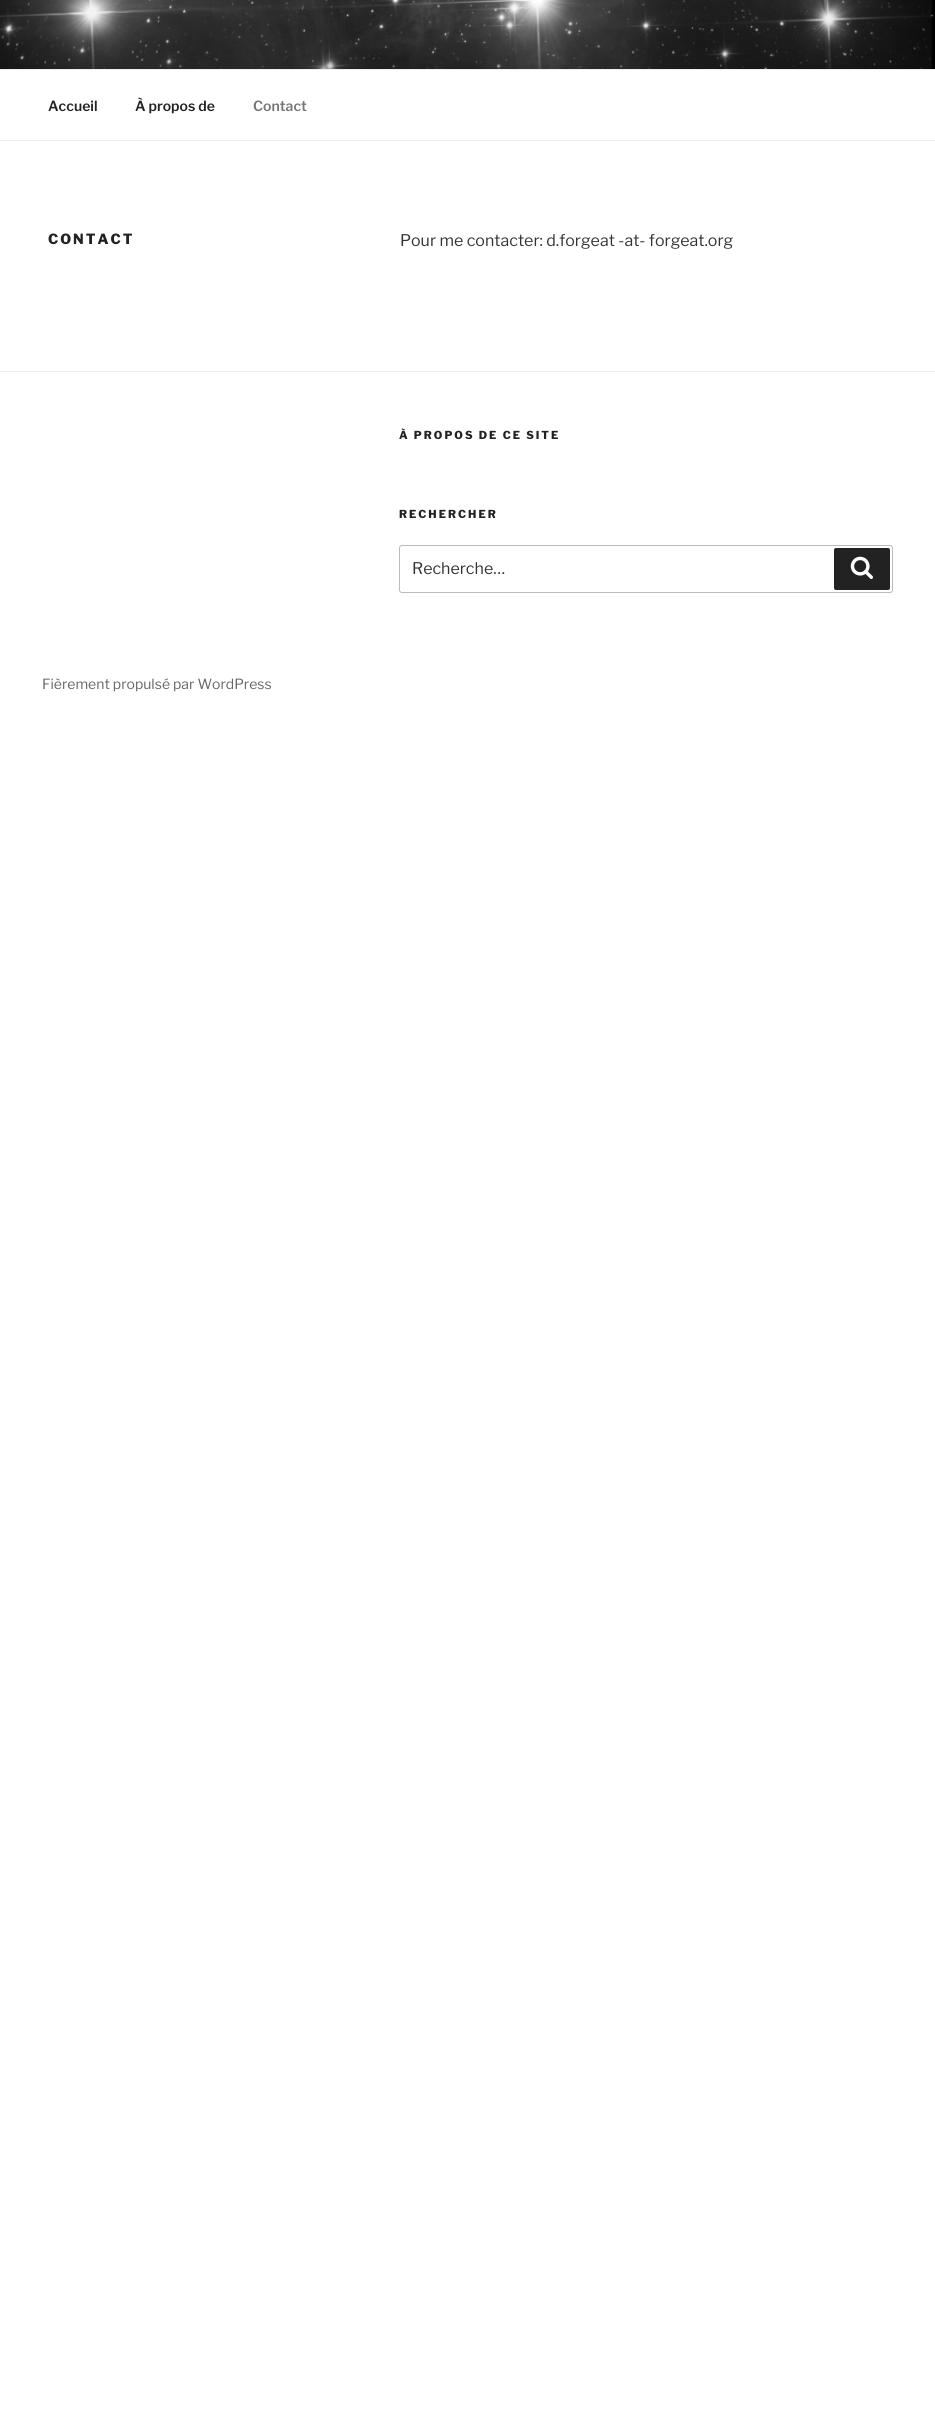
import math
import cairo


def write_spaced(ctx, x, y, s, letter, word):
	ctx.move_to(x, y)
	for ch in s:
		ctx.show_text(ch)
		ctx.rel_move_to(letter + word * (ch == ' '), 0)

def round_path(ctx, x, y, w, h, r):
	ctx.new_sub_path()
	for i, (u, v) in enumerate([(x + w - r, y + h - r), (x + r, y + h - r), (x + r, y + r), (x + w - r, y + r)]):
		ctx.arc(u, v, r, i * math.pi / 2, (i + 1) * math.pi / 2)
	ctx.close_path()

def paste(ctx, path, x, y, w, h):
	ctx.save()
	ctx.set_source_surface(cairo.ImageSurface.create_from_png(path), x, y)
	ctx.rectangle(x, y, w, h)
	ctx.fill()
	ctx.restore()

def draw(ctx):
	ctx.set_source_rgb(1, 1, 1)
	ctx.paint()
	paste(ctx, 'media/1.png', 0, 0, 935, 69)
	ctx.set_source_rgb(0.933, 0.933, 0.933)
	ctx.rectangle(0, 69, 935, 1)
	ctx.fill()
	ctx.rectangle(0, 140, 935, 1)
	ctx.fill()
	ctx.select_font_face('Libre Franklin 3 Thin')
	ctx.set_font_size(14)
	ctx.set_source_rgb(0.133, 0.133, 0.133)
	ctx.move_to(48, 111)
	ctx.show_text('Accueil')
	ctx.move_to(135, 111)
	ctx.show_text('À propos de')
	ctx.set_source_rgb(0.463, 0.463, 0.463)
	ctx.move_to(253, 111)
	ctx.show_text('Contact')
	ctx.select_font_face('Libre Franklin Thin')
	ctx.set_source_rgb(0.133, 0.133, 0.133)
	write_spaced(ctx, 48, 244, 'CONTACT', 2, 0)
	ctx.select_font_face('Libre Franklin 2 Thin')
	ctx.set_font_size(16)
	ctx.set_source_rgb(0.2, 0.2, 0.2)
	ctx.move_to(400, 246)
	ctx.show_text('Pour me contacter: d.forgeat -at- forgeat.org')
	ctx.set_source_rgb(0.933, 0.933, 0.933)
	ctx.rectangle(0, 371, 935, 1)
	ctx.fill()
	ctx.select_font_face('Libre Franklin Thin')
	ctx.set_font_size(11)
	ctx.set_source_rgb(0.133, 0.133, 0.133)
	write_spaced(ctx, 399, 439, 'À PROPOS DE CE SITE', 2, 0)
	write_spaced(ctx, 399, 518, 'RECHERCHER', 2, 0)
	round_path(ctx, 399.5, 545.5, 493, 47, 2.5)
	ctx.set_source_rgb(0.733, 0.733, 0.733)
	ctx.set_line_width(1)
	ctx.stroke()
	ctx.select_font_face('Libre Franklin 2 Thin')
	ctx.set_font_size(16)
	ctx.set_source_rgb(0.2, 0.2, 0.2)
	ctx.move_to(412, 574)
	ctx.show_text('Recherche…')
	ctx.set_source_rgb(0.133, 0.133, 0.133)
	round_path(ctx, 834, 548, 56, 42, 2)
	ctx.fill()
	paste(ctx, 'media/2.png', 850, 556, 23, 23)
	ctx.set_font_size(14)
	ctx.set_source_rgb(0.4, 0.4, 0.4)
	ctx.move_to(42, 689)
	ctx.show_text('Fièrement propulsé par WordPress')


surface = cairo.ImageSurface(cairo.FORMAT_RGB24, 935, 2436)
ctx = cairo.Context(surface)
options = cairo.FontOptions()
options.set_hint_metrics(cairo.HINT_METRICS_OFF)
options.set_hint_style(cairo.HINT_STYLE_NONE)
ctx.set_font_options(options)
ctx.set_miter_limit(4)
draw(ctx)
surface.write_to_png('image.png')
